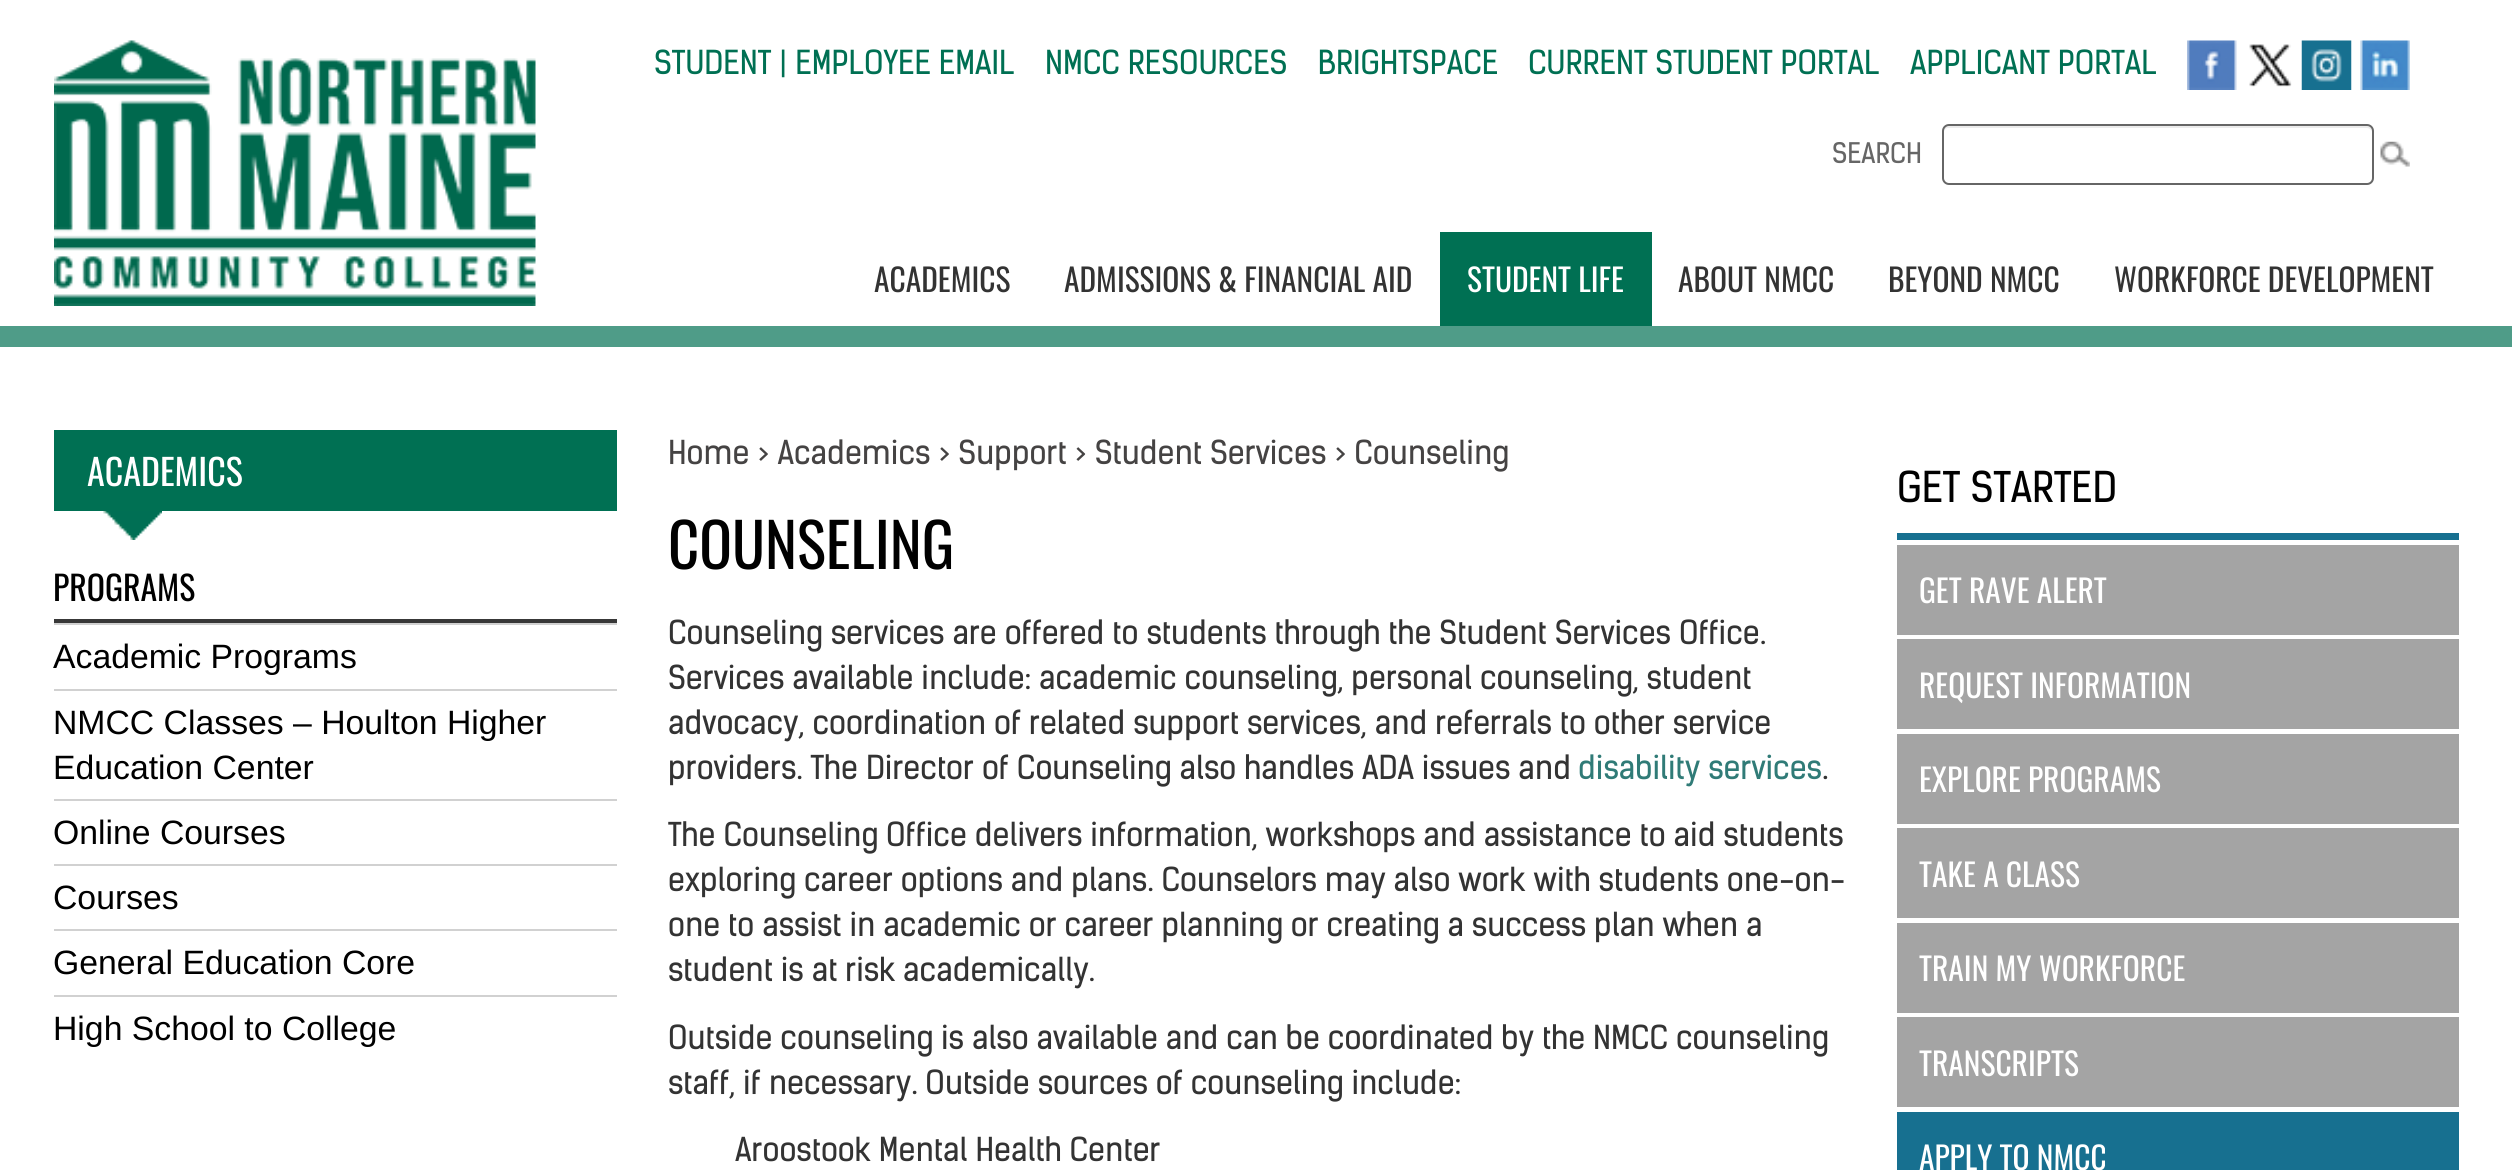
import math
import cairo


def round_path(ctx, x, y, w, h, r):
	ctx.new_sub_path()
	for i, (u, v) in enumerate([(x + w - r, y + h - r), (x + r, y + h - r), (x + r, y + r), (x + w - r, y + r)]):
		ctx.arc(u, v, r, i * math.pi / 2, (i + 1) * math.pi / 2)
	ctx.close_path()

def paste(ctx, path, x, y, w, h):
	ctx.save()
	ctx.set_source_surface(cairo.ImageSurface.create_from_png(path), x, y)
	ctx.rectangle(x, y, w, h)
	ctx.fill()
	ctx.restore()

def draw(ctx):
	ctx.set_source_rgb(1, 1, 1)
	ctx.paint()
	ctx.set_source_rgb(0.31, 0.612, 0.533)
	ctx.rectangle(0, 326, 2512, 21)
	ctx.fill()
	paste(ctx, 'media/1.png', 54, 40, 482, 266)
	ctx.select_font_face('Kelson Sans')
	ctx.set_font_size(31.5)
	ctx.set_source_rgb(0, 0.439, 0.325)
	for x, y, s in [
		(654, 74, 'STUDENT | EMPLOYEE EMAIL'),
		(1045, 74, 'NMCC RESOURCES'),
		(1318, 74, 'BRIGHTSPACE'),
		(1528, 74, 'CURRENT STUDENT PORTAL'),
		(1910, 74, 'APPLICANT PORTAL'),
	]:
		ctx.move_to(x, y)
		ctx.show_text(s)
	paste(ctx, 'media/2.png', 2187, 40, 50, 50)
	paste(ctx, 'media/3.png', 2249, 44, 43, 43)
	paste(ctx, 'media/4.png', 2301, 40, 51, 50)
	paste(ctx, 'media/5.png', 2360, 40, 50, 50)
	ctx.set_font_size(27)
	ctx.set_source_rgb(0.4, 0.4, 0.4)
	ctx.move_to(1832, 163)
	ctx.show_text('SEARCH')
	ctx.set_source_rgb(0.925, 0.925, 0.925)
	ctx.new_path()
	ctx.move_to(1948, 128)
	ctx.line_to(2367, 128)
	ctx.curve_to(2369, 128, 2372, 130, 2372, 133)
	ctx.curve_to(2372, 130, 2371, 126, 2367, 126)
	ctx.line_to(1949, 126)
	ctx.curve_to(1945, 126, 1944, 130, 1944, 133)
	ctx.curve_to(1944, 130, 1946, 128, 1948, 128)
	ctx.close_path()
	ctx.fill()
	round_path(ctx, 1943, 125, 430, 59, 6)
	ctx.set_source_rgb(0.4, 0.4, 0.4)
	ctx.stroke()
	paste(ctx, 'media/6.png', 2380, 141, 30, 26)
	ctx.select_font_face('Oswald')
	ctx.set_font_size(31.5)
	ctx.set_source_rgb(0.2, 0.2, 0.2)
	ctx.move_to(874, 292)
	ctx.show_text('ACADEMICS')
	ctx.move_to(1064, 292)
	ctx.show_text('ADMISSIONS & FINANCIAL AID')
	ctx.set_source_rgb(0, 0.439, 0.325)
	ctx.rectangle(1440, 232, 212, 94)
	ctx.fill()
	ctx.set_source_rgb(1, 1, 1)
	ctx.move_to(1467, 292)
	ctx.show_text('STUDENT LIFE')
	ctx.set_source_rgb(0.2, 0.2, 0.2)
	for x, y, s in [
		(1678, 292, 'ABOUT NMCC'),
		(1888, 292, 'BEYOND NMCC'),
		(2114, 292, 'WORKFORCE DEVELOPMENT'),
	]:
		ctx.move_to(x, y)
		ctx.show_text(s)
	ctx.set_source_rgb(0, 0.439, 0.325)
	ctx.rectangle(54, 430, 563, 81)
	ctx.fill()
	ctx.set_font_size(36)
	ctx.set_source_rgb(1, 1, 1)
	ctx.move_to(87, 486)
	ctx.show_text('ACADEMICS')
	paste(ctx, 'media/7.png', 103, 511, 59, 29)
	ctx.set_source_rgb(0.22, 0.22, 0.22)
	ctx.rectangle(54, 619, 563, 4)
	ctx.fill()
	ctx.set_font_size(33.75)
	ctx.set_source_rgb(0, 0, 0)
	ctx.move_to(53, 601)
	ctx.show_text('PROGRAMS')
	ctx.set_source_rgb(0.82, 0.82, 0.82)
	ctx.rectangle(54, 623, 563, 2)
	ctx.fill()
	ctx.select_font_face('Liberation Sans')
	ctx.set_source_rgb(0, 0, 0)
	ctx.move_to(53, 668)
	ctx.show_text('Academic Programs')
	ctx.set_source_rgb(0.82, 0.82, 0.82)
	ctx.rectangle(54, 689, 563, 2)
	ctx.fill()
	ctx.set_source_rgb(0, 0, 0)
	ctx.move_to(53, 734)
	ctx.show_text('NMCC Classes – Houlton Higher')
	ctx.move_to(53, 779)
	ctx.show_text('Education Center')
	ctx.set_source_rgb(0.82, 0.82, 0.82)
	ctx.rectangle(54, 799, 563, 2)
	ctx.fill()
	ctx.set_source_rgb(0, 0, 0)
	ctx.move_to(53, 844)
	ctx.show_text('Online Courses')
	ctx.set_source_rgb(0.82, 0.82, 0.82)
	ctx.rectangle(54, 864, 563, 2)
	ctx.fill()
	ctx.set_source_rgb(0, 0, 0)
	ctx.move_to(53, 909)
	ctx.show_text('Courses')
	ctx.set_source_rgb(0.82, 0.82, 0.82)
	ctx.rectangle(54, 929, 563, 2)
	ctx.fill()
	ctx.set_source_rgb(0, 0, 0)
	ctx.move_to(53, 974)
	ctx.show_text('General Education Core')
	ctx.set_source_rgb(0.82, 0.82, 0.82)
	ctx.rectangle(54, 995, 563, 2)
	ctx.fill()
	ctx.set_source_rgb(0, 0, 0)
	ctx.move_to(53, 1040)
	ctx.show_text('High School to College')
	ctx.select_font_face('Kelson Sans')
	ctx.set_font_size(31.5)
	ctx.set_source_rgb(0.271, 0.263, 0.263)
	ctx.move_to(668, 464)
	ctx.show_text('Home > Academics > Support > Student Services > Counseling')
	ctx.select_font_face('Oswald')
	ctx.set_font_size(60.75)
	ctx.set_source_rgb(0, 0, 0)
	ctx.move_to(668, 569)
	ctx.show_text('COUNSELING')
	ctx.select_font_face('Kelson Sans')
	ctx.set_font_size(31.5)
	ctx.set_source_rgb(0.2, 0.2, 0.2)
	for x, y, s in [
		(668, 644, 'Counseling services are offered to students through the Student Services Office.'),
		(668, 689, 'Services available include: academic counseling, personal counseling, student'),
		(668, 734, 'advocacy, coordination of related support services, and referrals to other service'),
		(668, 779, 'providers. The Director of Counseling also handles ADA issues and'),
	]:
		ctx.move_to(x, y)
		ctx.show_text(s)
	ctx.set_source_rgb(0.188, 0.482, 0.467)
	ctx.move_to(1578, 779)
	ctx.show_text('disability services')
	ctx.set_source_rgb(0.2, 0.2, 0.2)
	for x, y, s in [
		(1822, 779, '.'),
		(668, 846, 'The Counseling Office delivers information, workshops and assistance to aid students'),
		(668, 891, 'exploring career options and plans. Counselors may also work with students one-on-'),
		(668, 936, 'one to assist in academic or career planning or creating a success plan when a'),
		(668, 981, 'student is at risk academically.'),
		(668, 1049, 'Outside counseling is also available and can be coordinated by the NMCC counseling'),
		(668, 1094, 'staff, if necessary. Outside sources of counseling include:'),
		(735, 1161, 'Aroostook Mental Health Center'),
	]:
		ctx.move_to(x, y)
		ctx.show_text(s)
	ctx.set_source_rgb(0.09, 0.439, 0.565)
	ctx.rectangle(1897, 533, 562, 7)
	ctx.fill()
	ctx.set_font_size(40.5)
	ctx.set_source_rgb(0, 0, 0)
	ctx.move_to(1897, 502)
	ctx.show_text('GET STARTED')
	ctx.set_source_rgb(0.643, 0.643, 0.643)
	ctx.rectangle(1897, 545, 562, 90)
	ctx.fill()
	ctx.select_font_face('Oswald')
	ctx.set_font_size(31.5)
	ctx.set_source_rgb(1, 1, 1)
	ctx.move_to(1919, 603)
	ctx.show_text('GET RAVE ALERT')
	ctx.set_source_rgb(0.643, 0.643, 0.643)
	ctx.rectangle(1897, 639, 562, 90)
	ctx.fill()
	ctx.set_source_rgb(1, 1, 1)
	ctx.move_to(1919, 698)
	ctx.show_text('REQUEST INFORMATION')
	ctx.set_source_rgb(0.643, 0.643, 0.643)
	ctx.rectangle(1897, 734, 562, 90)
	ctx.fill()
	ctx.set_source_rgb(1, 1, 1)
	ctx.move_to(1919, 792)
	ctx.show_text('EXPLORE PROGRAMS')
	ctx.set_source_rgb(0.643, 0.643, 0.643)
	ctx.rectangle(1897, 828, 562, 90)
	ctx.fill()
	ctx.set_source_rgb(1, 1, 1)
	ctx.move_to(1919, 887)
	ctx.show_text('TAKE A CLASS')
	ctx.set_source_rgb(0.643, 0.643, 0.643)
	ctx.rectangle(1897, 923, 562, 90)
	ctx.fill()
	ctx.set_source_rgb(1, 1, 1)
	ctx.move_to(1919, 981)
	ctx.show_text('TRAIN MY WORKFORCE')
	ctx.set_source_rgb(0.643, 0.643, 0.643)
	ctx.rectangle(1897, 1017, 562, 90)
	ctx.fill()
	ctx.set_source_rgb(1, 1, 1)
	ctx.move_to(1919, 1076)
	ctx.show_text('TRANSCRIPTS')
	ctx.set_source_rgb(0.09, 0.439, 0.565)
	ctx.rectangle(1897, 1112, 562, 58)
	ctx.fill()
	ctx.set_source_rgb(1, 1, 1)
	ctx.move_to(1919, 1170)
	ctx.show_text('APPLY TO NMCC')


surface = cairo.ImageSurface(cairo.FORMAT_RGB24, 2512, 1170)
ctx = cairo.Context(surface)
options = cairo.FontOptions()
options.set_hint_metrics(cairo.HINT_METRICS_OFF)
options.set_hint_style(cairo.HINT_STYLE_NONE)
ctx.set_font_options(options)
ctx.set_miter_limit(4)
draw(ctx)
surface.write_to_png('image.png')
